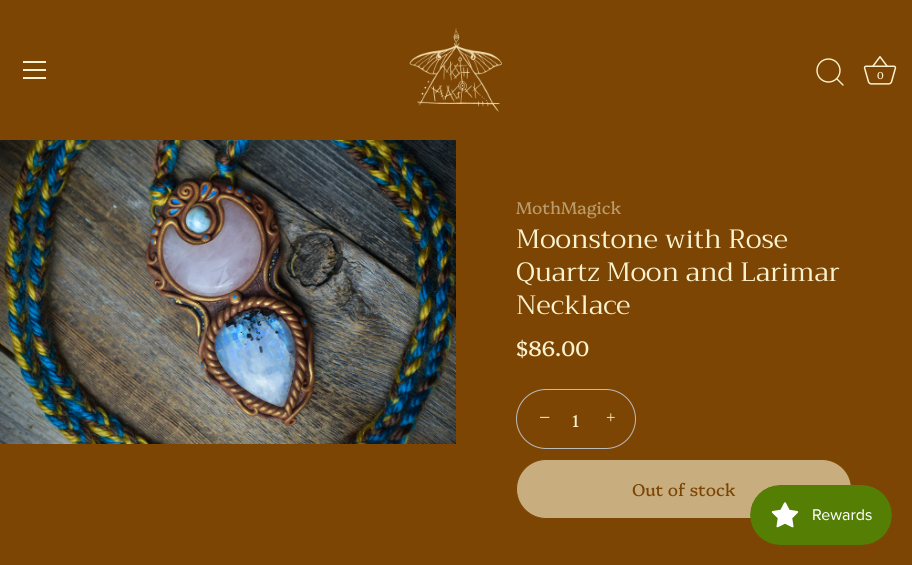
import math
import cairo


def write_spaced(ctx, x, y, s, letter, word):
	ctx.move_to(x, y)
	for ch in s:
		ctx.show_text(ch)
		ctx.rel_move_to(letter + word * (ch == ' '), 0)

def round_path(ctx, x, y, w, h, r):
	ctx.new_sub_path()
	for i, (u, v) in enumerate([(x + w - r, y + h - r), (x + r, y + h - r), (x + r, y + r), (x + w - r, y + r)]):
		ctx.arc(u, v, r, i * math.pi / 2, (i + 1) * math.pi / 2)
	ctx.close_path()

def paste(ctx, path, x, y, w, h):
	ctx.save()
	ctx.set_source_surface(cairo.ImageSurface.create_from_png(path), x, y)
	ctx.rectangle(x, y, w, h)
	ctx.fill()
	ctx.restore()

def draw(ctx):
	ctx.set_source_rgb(0.486, 0.271, 0.016)
	ctx.paint()
	ctx.set_source_rgb(0.98, 0.949, 0.812)
	ctx.rectangle(23, 61, 23, 2)
	ctx.rectangle(23, 69, 23, 2)
	ctx.rectangle(23, 77, 23, 2)
	ctx.fill()
	paste(ctx, 'media/1.png', 409, 28, 93, 84)
	ctx.arc(828.5, 70.5, 11.5, 0, 2 * math.pi)
	ctx.set_line_width(1.4)
	ctx.stroke()
	ctx.new_path()
	ctx.move_to(843, 85)
	ctx.line_to(837, 79)
	ctx.set_line_cap(cairo.LINE_CAP_ROUND)
	ctx.set_line_join(cairo.LINE_JOIN_ROUND)
	ctx.stroke()
	paste(ctx, 'media/2.png', 863, 56, 34, 29)
	ctx.select_font_face('Platypi')
	ctx.set_font_size(10)
	ctx.move_to(877, 79)
	ctx.show_text('0')
	paste(ctx, 'media/3.png', 0, 140, 456, 304)
	ctx.set_font_size(17)
	ctx.set_source_rgb(0.733, 0.612, 0.416)
	ctx.move_to(516, 214)
	ctx.show_text('MothMagick')
	ctx.select_font_face('Trirong')
	ctx.set_font_size(26.5)
	ctx.set_source_rgb(0.98, 0.949, 0.812)
	for x, y, s in [
		(516, 248, 'Moonstone with Rose'),
		(516, 281, 'Quartz Moon and Larimar'),
		(516, 314, 'Necklace'),
	]:
		ctx.move_to(x, y)
		ctx.show_text(s)
	ctx.select_font_face('Platypi')
	ctx.set_font_size(21)
	ctx.move_to(516, 356)
	ctx.show_text('$86.00')
	round_path(ctx, 516.5, 389.5, 119, 59, 29.5)
	ctx.set_source_rgb(0.733, 0.733, 0.733)
	ctx.set_line_width(1)
	ctx.set_line_cap(cairo.LINE_CAP_BUTT)
	ctx.set_line_join(cairo.LINE_JOIN_MITER)
	ctx.stroke()
	ctx.select_font_face('Liberation Serif')
	ctx.set_font_size(20)
	ctx.set_source_rgb(0.98, 0.949, 0.812)
	ctx.move_to(539, 424)
	ctx.show_text('−')
	ctx.select_font_face('Platypi')
	ctx.set_font_size(17)
	write_spaced(ctx, 572, 427, '1', 1, 0)
	ctx.select_font_face('Liberation Serif')
	ctx.move_to(606, 423)
	ctx.show_text('+')
	ctx.set_source_rgb(0.784, 0.678, 0.494)
	round_path(ctx, 516.5, 459.5, 335, 59, 29.5)
	ctx.fill_preserve()
	ctx.set_source_rgb(0.486, 0.271, 0.016)
	ctx.stroke()
	ctx.select_font_face('Platypi')
	ctx.move_to(632, 496)
	ctx.show_text('Out of stock')
	paste(ctx, 'media/4.png', 750, 485, 142, 60)


surface = cairo.ImageSurface(cairo.FORMAT_RGB24, 912, 565)
ctx = cairo.Context(surface)
options = cairo.FontOptions()
options.set_hint_metrics(cairo.HINT_METRICS_OFF)
options.set_hint_style(cairo.HINT_STYLE_NONE)
ctx.set_font_options(options)
ctx.set_miter_limit(4)
draw(ctx)
surface.write_to_png('image.png')
